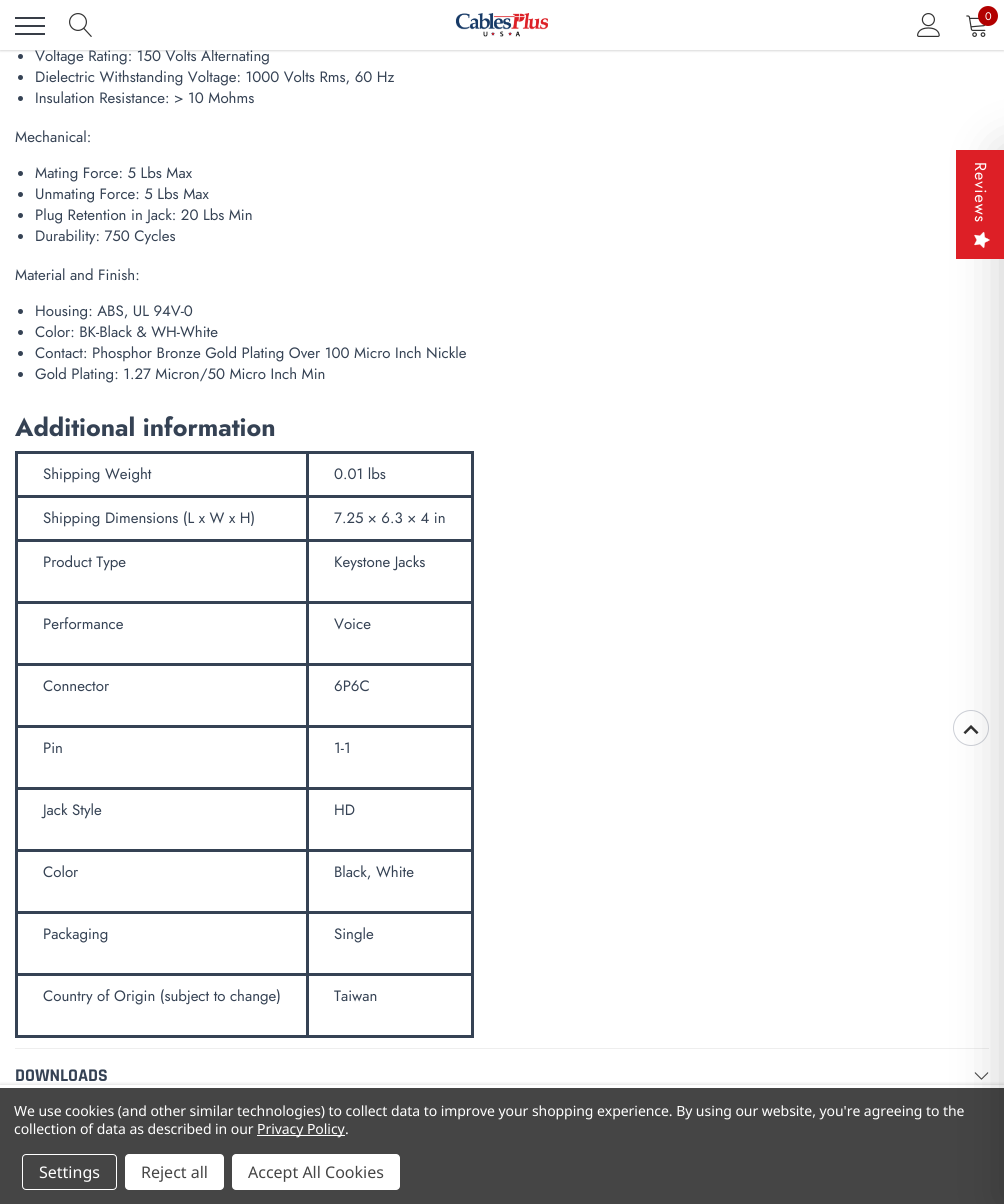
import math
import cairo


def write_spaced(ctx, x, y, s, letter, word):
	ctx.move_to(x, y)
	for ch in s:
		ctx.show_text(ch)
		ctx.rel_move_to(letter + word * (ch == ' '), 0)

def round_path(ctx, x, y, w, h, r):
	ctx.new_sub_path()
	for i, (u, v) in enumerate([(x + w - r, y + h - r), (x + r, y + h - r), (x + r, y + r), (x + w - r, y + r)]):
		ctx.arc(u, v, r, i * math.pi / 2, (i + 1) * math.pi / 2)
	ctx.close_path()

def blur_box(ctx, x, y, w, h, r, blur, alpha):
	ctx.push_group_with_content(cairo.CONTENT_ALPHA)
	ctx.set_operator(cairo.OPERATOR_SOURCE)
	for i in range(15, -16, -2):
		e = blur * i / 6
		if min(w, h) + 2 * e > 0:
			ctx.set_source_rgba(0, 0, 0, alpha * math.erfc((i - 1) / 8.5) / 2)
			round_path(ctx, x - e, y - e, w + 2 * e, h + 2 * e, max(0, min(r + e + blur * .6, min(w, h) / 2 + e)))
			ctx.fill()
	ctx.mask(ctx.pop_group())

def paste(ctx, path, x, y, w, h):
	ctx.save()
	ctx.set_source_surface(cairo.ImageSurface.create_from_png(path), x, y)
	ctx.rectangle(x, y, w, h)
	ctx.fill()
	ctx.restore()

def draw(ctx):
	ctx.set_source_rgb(1, 1, 1)
	ctx.paint()
	ctx.set_source_rgb(0.208, 0.259, 0.329)
	ctx.arc(20.5, 56.5, 2.5, 0, 2 * math.pi)
	ctx.fill()
	ctx.set_source_rgb(0, 0, 0)
	blur_box(ctx, 0, 1, 1004, 50, 0, 1, 0.15)
	ctx.select_font_face('Jost')
	ctx.set_font_size(15)
	ctx.set_source_rgb(0.208, 0.259, 0.329)
	ctx.move_to(35, 61)
	ctx.show_text('Voltage Rating: 150 Volts Alternating')
	ctx.set_source_rgb(1, 1, 1)
	ctx.rectangle(0, 0, 1004, 50)
	ctx.fill()
	ctx.set_source_rgb(0.22, 0.243, 0.278)
	ctx.rectangle(15, 25, 30, 2)
	ctx.rectangle(15, 17, 30, 2)
	ctx.rectangle(15, 33, 30, 2)
	ctx.fill()
	paste(ctx, 'media/1.png', 69, 13, 23, 24)
	paste(ctx, 'media/2.png', 455, 13, 93, 24)
	paste(ctx, 'media/3.png', 917, 13, 23, 24)
	paste(ctx, 'media/4.png', 966, 15, 20, 22)
	ctx.set_source_rgb(0.698, 0, 0)
	ctx.arc(988, 16, 10, 0, 2 * math.pi)
	ctx.fill()
	ctx.set_font_size(11)
	ctx.set_source_rgb(1, 1, 1)
	ctx.move_to(985, 20)
	ctx.show_text('0')
	ctx.set_source_rgb(0.208, 0.259, 0.329)
	ctx.new_path()
	ctx.arc(20.5, 77.5, 2.5, 0, 2 * math.pi)
	ctx.fill()
	ctx.set_font_size(15)
	ctx.move_to(35, 82)
	ctx.show_text('Dielectric Withstanding Voltage: 1000 Volts Rms, 60 Hz')
	ctx.new_path()
	ctx.arc(20.5, 98.5, 2.5, 0, 2 * math.pi)
	ctx.fill()
	ctx.move_to(35, 103)
	ctx.show_text('Insulation Resistance: > 10 Mohms')
	ctx.move_to(15, 142)
	ctx.show_text('Mechanical:')
	ctx.new_path()
	ctx.arc(20.5, 173.5, 2.5, 0, 2 * math.pi)
	ctx.fill()
	ctx.move_to(35, 178)
	ctx.show_text('Mating Force: 5 Lbs Max')
	ctx.new_path()
	ctx.arc(20.5, 194.5, 2.5, 0, 2 * math.pi)
	ctx.fill()
	ctx.move_to(35, 199)
	ctx.show_text('Unmating Force: 5 Lbs Max')
	ctx.new_path()
	ctx.arc(20.5, 215.5, 2.5, 0, 2 * math.pi)
	ctx.fill()
	ctx.move_to(35, 220)
	ctx.show_text('Plug Retention in Jack: 20 Lbs Min')
	ctx.new_path()
	ctx.arc(20.5, 236.5, 2.5, 0, 2 * math.pi)
	ctx.fill()
	ctx.move_to(35, 241)
	ctx.show_text('Durability: 750 Cycles')
	ctx.move_to(15, 280)
	ctx.show_text('Material and Finish:')
	ctx.new_path()
	ctx.arc(20.5, 311.5, 2.5, 0, 2 * math.pi)
	ctx.fill()
	ctx.move_to(35, 316)
	ctx.show_text('Housing: ABS, UL 94V-0')
	ctx.new_path()
	ctx.arc(20.5, 332.5, 2.5, 0, 2 * math.pi)
	ctx.fill()
	ctx.move_to(35, 337)
	ctx.show_text('Color: BK-Black & WH-White')
	ctx.new_path()
	ctx.arc(20.5, 353.5, 2.5, 0, 2 * math.pi)
	ctx.fill()
	ctx.move_to(35, 358)
	ctx.show_text('Contact: Phosphor Bronze Gold Plating Over 100 Micro Inch Nickle')
	ctx.new_path()
	ctx.arc(20.5, 374.5, 2.5, 0, 2 * math.pi)
	ctx.fill()
	ctx.move_to(35, 379)
	ctx.show_text('Gold Plating: 1.27 Micron/50 Micro Inch Min')
	ctx.select_font_face('Jost', cairo.FONT_SLANT_NORMAL, cairo.FONT_WEIGHT_BOLD)
	ctx.set_font_size(25)
	ctx.move_to(15, 436)
	ctx.show_text('Additional information')
	ctx.rectangle(306, 451, 168, 3)
	ctx.rectangle(306, 495, 168, 3)
	ctx.rectangle(306, 539, 168, 3)
	ctx.rectangle(306, 601, 168, 3)
	ctx.rectangle(306, 663, 168, 3)
	ctx.rectangle(306, 725, 168, 3)
	ctx.rectangle(306, 787, 168, 3)
	ctx.rectangle(306, 849, 168, 3)
	ctx.rectangle(306, 911, 168, 3)
	ctx.rectangle(306, 973, 168, 3)
	ctx.rectangle(471, 973, 3, 65)
	ctx.rectangle(306, 1035, 168, 3)
	ctx.rectangle(306, 973, 3, 65)
	ctx.rectangle(15, 973, 294, 3)
	ctx.rectangle(306, 911, 3, 65)
	ctx.rectangle(15, 911, 294, 3)
	ctx.rectangle(306, 849, 3, 65)
	ctx.rectangle(15, 849, 294, 3)
	ctx.rectangle(306, 787, 3, 65)
	ctx.rectangle(15, 787, 294, 3)
	ctx.rectangle(306, 725, 3, 65)
	ctx.rectangle(15, 725, 294, 3)
	ctx.rectangle(306, 663, 3, 65)
	ctx.rectangle(15, 663, 294, 3)
	ctx.rectangle(306, 601, 3, 65)
	ctx.rectangle(15, 601, 294, 3)
	ctx.rectangle(306, 539, 3, 65)
	ctx.rectangle(15, 539, 294, 3)
	ctx.rectangle(306, 495, 3, 47)
	ctx.rectangle(15, 495, 294, 3)
	ctx.rectangle(306, 451, 3, 47)
	ctx.rectangle(15, 451, 294, 3)
	ctx.rectangle(15, 1035, 294, 3)
	ctx.rectangle(15, 973, 3, 65)
	ctx.rectangle(15, 911, 3, 65)
	ctx.rectangle(15, 849, 3, 65)
	ctx.rectangle(15, 787, 3, 65)
	ctx.rectangle(15, 725, 3, 65)
	ctx.rectangle(15, 663, 3, 65)
	ctx.rectangle(15, 601, 3, 65)
	ctx.rectangle(15, 539, 3, 65)
	ctx.rectangle(15, 495, 3, 47)
	ctx.rectangle(15, 451, 3, 47)
	ctx.fill()
	ctx.select_font_face('Jost')
	ctx.set_font_size(15)
	ctx.move_to(43, 479)
	ctx.show_text('Shipping Weight')
	ctx.rectangle(471, 911, 3, 65)
	ctx.rectangle(471, 849, 3, 65)
	ctx.rectangle(471, 787, 3, 65)
	ctx.rectangle(471, 725, 3, 65)
	ctx.rectangle(471, 663, 3, 65)
	ctx.rectangle(471, 601, 3, 65)
	ctx.rectangle(471, 539, 3, 65)
	ctx.rectangle(471, 495, 3, 47)
	ctx.rectangle(471, 451, 3, 47)
	ctx.fill()
	for x, y, s in [
		(334, 479, '0.01 lbs'),
		(43, 523, 'Shipping Dimensions (L x W x H)'),
		(334, 523, '7.25 × 6.3 × 4 in'),
		(43, 567, 'Product Type'),
		(334, 567, 'Keystone Jacks'),
		(43, 629, 'Performance'),
		(334, 629, 'Voice'),
		(43, 691, 'Connector'),
		(334, 691, '6P6C'),
		(43, 753, 'Pin'),
		(334, 753, '1-1'),
		(43, 815, 'Jack Style'),
		(334, 815, 'HD'),
		(43, 877, 'Color'),
		(334, 877, 'Black, White'),
		(43, 939, 'Packaging'),
		(334, 939, 'Single'),
		(43, 1001, 'Country of Origin (subject to change)'),
		(334, 1001, 'Taiwan'),
	]:
		ctx.move_to(x, y)
		ctx.show_text(s)
	ctx.set_source_rgb(0.933, 0.933, 0.933)
	ctx.rectangle(15, 1048, 974, 1)
	ctx.fill()
	ctx.select_font_face('Rajdhani', cairo.FONT_SLANT_NORMAL, cairo.FONT_WEIGHT_BOLD)
	ctx.set_font_size(18)
	ctx.set_source_rgb(0.208, 0.259, 0.329)
	ctx.move_to(15, 1081)
	ctx.show_text('DOWNLOADS')
	paste(ctx, 'media/5.png', 974, 1072, 15, 8)
	ctx.set_source_rgb(0, 0, 0)
	blur_box(ctx, 0, 1085, 1004, 119, 0, 2, 0.2)
	ctx.set_source_rgb(1, 1, 1)
	ctx.rectangle(0, 1085, 1004, 3)
	ctx.fill()
	ctx.arc(971, 728, 17.5, 0, 2 * math.pi)
	ctx.set_source_rgb(0.804, 0.816, 0.843)
	ctx.set_line_width(1)
	ctx.stroke()
	paste(ctx, 'media/7.png', 963, 725, 16, 10)
	ctx.set_source_rgb(0.271, 0.271, 0.271)
	ctx.rectangle(0, 1088, 1004, 116)
	ctx.fill()
	ctx.set_source_rgb(0, 0, 0)
	blur_box(ctx, 1003, 152, 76, 1050, 0, 25, 0.2)
	ctx.set_source_rgb(0.867, 0.122, 0.149)
	ctx.rectangle(956, 150, 48, 109)
	ctx.fill()
	ctx.select_font_face('Jost')
	ctx.set_font_size(16)
	ctx.set_source_rgb(1, 1, 1)
	ctx.save()
	ctx.translate(975, 162)
	ctx.rotate(90 * math.pi / 180)
	write_spaced(ctx, 0, 0, 'Reviews', 1, 0)
	ctx.restore()
	paste(ctx, 'media/6.png', 974, 232, 16, 16)
	ctx.select_font_face('Noto Sans')
	ctx.set_font_size(14)
	write_spaced(ctx, 14, 1116, 'We use cookies (and other similar technologies) to collect data to improve your shopping experience. By using our website, you\'re agreeing to the', -0.05, 0)
	write_spaced(ctx, 14, 1134, 'collection of data as described in our', -0.05, 0)
	ctx.rectangle(257, 1135, 88, 1)
	ctx.fill()
	write_spaced(ctx, 257, 1134, 'Privacy Policy', -0.05, 0)
	write_spaced(ctx, 345, 1134, '.', -0.05, 0)
	round_path(ctx, 22.5, 1154.5, 94, 35, 3.5)
	ctx.stroke()
	ctx.set_font_size(16)
	ctx.move_to(39, 1178)
	ctx.show_text('Settings')
	round_path(ctx, 125, 1154, 99, 36, 4)
	ctx.fill()
	ctx.set_source_rgb(0.271, 0.271, 0.271)
	ctx.move_to(141, 1178)
	ctx.show_text('Reject all')
	ctx.set_source_rgb(1, 1, 1)
	round_path(ctx, 232, 1154, 168, 36, 4)
	ctx.fill()
	ctx.set_source_rgb(0.271, 0.271, 0.271)
	ctx.move_to(248, 1178)
	ctx.show_text('Accept All Cookies')


surface = cairo.ImageSurface(cairo.FORMAT_RGB24, 1004, 1204)
ctx = cairo.Context(surface)
options = cairo.FontOptions()
options.set_hint_metrics(cairo.HINT_METRICS_OFF)
options.set_hint_style(cairo.HINT_STYLE_NONE)
ctx.set_font_options(options)
ctx.set_miter_limit(4)
draw(ctx)
surface.write_to_png('image.png')
